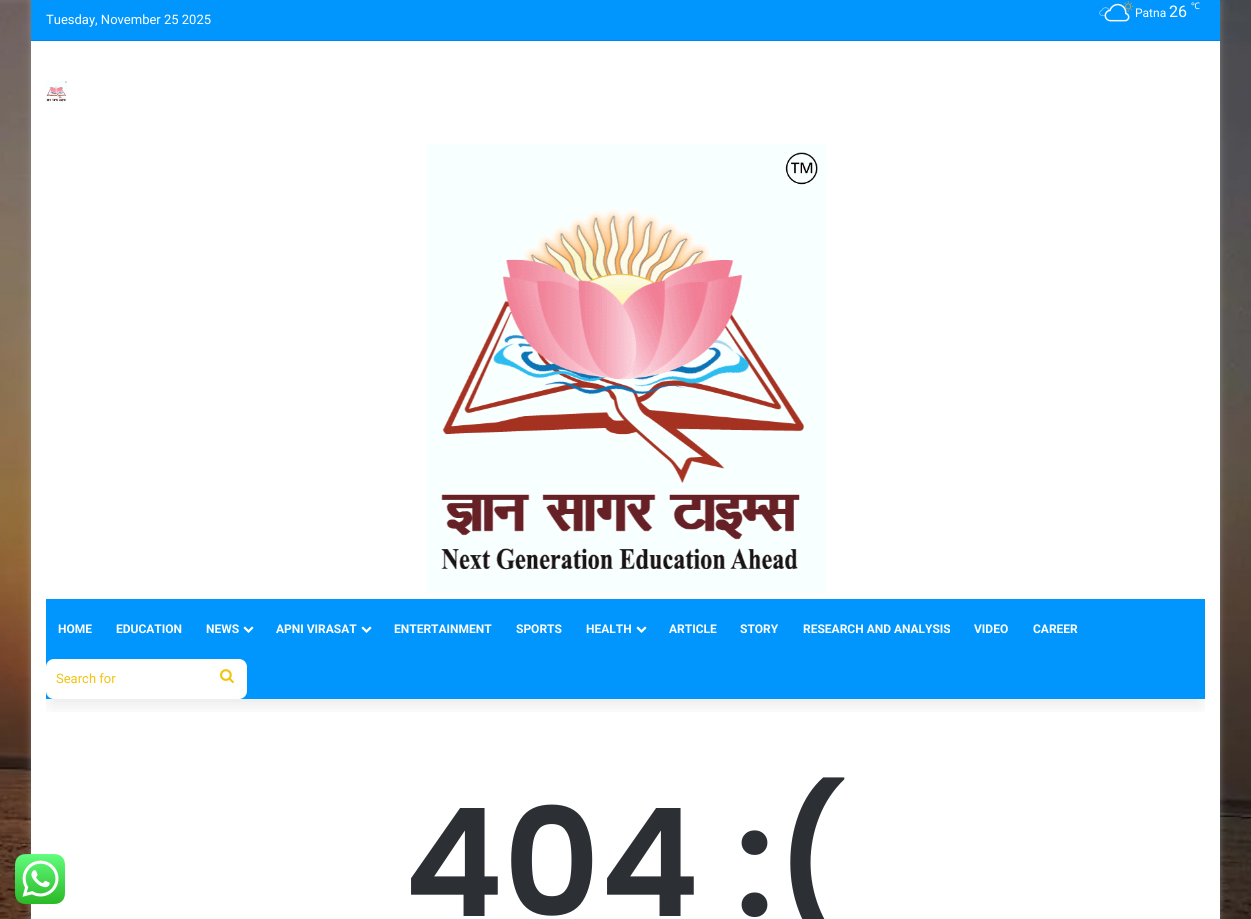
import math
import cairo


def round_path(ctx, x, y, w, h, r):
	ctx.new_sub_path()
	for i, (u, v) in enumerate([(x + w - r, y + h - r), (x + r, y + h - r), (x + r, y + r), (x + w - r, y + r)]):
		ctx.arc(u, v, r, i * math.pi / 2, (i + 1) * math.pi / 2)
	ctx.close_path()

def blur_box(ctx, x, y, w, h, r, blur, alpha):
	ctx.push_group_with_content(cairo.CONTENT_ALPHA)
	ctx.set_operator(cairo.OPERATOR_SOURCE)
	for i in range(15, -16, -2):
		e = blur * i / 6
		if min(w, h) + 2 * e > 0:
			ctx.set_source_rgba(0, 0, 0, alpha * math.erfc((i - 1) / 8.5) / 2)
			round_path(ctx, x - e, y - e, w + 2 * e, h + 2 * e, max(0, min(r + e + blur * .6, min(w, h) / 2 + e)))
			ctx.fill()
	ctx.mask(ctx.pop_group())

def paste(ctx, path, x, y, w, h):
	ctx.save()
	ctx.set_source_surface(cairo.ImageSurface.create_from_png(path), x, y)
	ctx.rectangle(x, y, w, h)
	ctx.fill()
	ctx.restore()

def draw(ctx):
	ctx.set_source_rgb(1, 1, 1)
	ctx.paint()
	paste(ctx, 'media/1.png', 0, 0, 1251, 919)
	ctx.set_source_rgb(0.671, 0.671, 0.671)
	blur_box(ctx, 31, 1, 1189, 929, 0, 3.5, 0.5)
	ctx.set_source_rgb(1, 1, 1)
	ctx.rectangle(31, 41, 1189, 878)
	ctx.fill()
	paste(ctx, 'media/2.png', 15, 854, 50, 50)
	ctx.save()
	ctx.rectangle(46, 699, 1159, 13)
	ctx.clip()
	ctx.set_source_rgb(0, 0, 0)
	blur_box(ctx, 51, 45, 1149, 659, 0, 10, 0.1)
	ctx.restore()
	ctx.set_source_rgb(0, 0.588, 0.996)
	ctx.rectangle(31, 0, 1189, 40)
	ctx.fill()
	ctx.set_source_rgb(0, 0.529, 0.898)
	ctx.rectangle(31, 40, 1189, 1)
	ctx.fill()
	paste(ctx, 'media/3.png', 1123, 1, 11, 11)
	paste(ctx, 'media/6.png', 1099, 7, 11, 9)
	paste(ctx, 'media/5.png', 1104, 6, 22, 10)
	paste(ctx, 'media/4.png', 1104, 3, 26, 19)
	ctx.select_font_face('Roboto')
	ctx.set_font_size(12)
	ctx.set_source_rgb(1, 1, 1)
	ctx.move_to(1135, 17)
	ctx.show_text('Patna')
	ctx.set_font_size(16)
	ctx.move_to(1169, 17)
	ctx.show_text('26')
	ctx.select_font_face('Noto Sans')
	ctx.set_font_size(9)
	ctx.move_to(1191, 9)
	ctx.show_text('℃')
	ctx.select_font_face('Roboto')
	ctx.set_font_size(13)
	ctx.move_to(46, 24)
	ctx.show_text('Tuesday, November 25 2025')
	paste(ctx, 'media/7.png', 46, 81, 21, 23)
	paste(ctx, 'media/8.png', 426, 144, 400, 449)
	ctx.set_source_rgb(0, 0.588, 0.996)
	ctx.rectangle(46, 599, 1159, 100)
	ctx.fill()
	ctx.select_font_face('Roboto', cairo.FONT_SLANT_NORMAL, cairo.FONT_WEIGHT_BOLD)
	ctx.set_font_size(12)
	ctx.set_source_rgb(1, 1, 1)
	for x, y, s in [
		(58, 633, 'HOME'),
		(116, 633, 'EDUCATION'),
		(206, 633, 'NEWS'),
	]:
		ctx.move_to(x, y)
		ctx.show_text(s)
	paste(ctx, 'media/9.png', 243, 626, 11, 7)
	ctx.move_to(276, 633)
	ctx.show_text('APNI VIRASAT')
	paste(ctx, 'media/9.png', 361, 626, 11, 7)
	for x, y, s in [
		(394, 633, 'ENTERTAINMENT'),
		(516, 633, 'SPORTS'),
		(586, 633, 'HEALTH'),
	]:
		ctx.move_to(x, y)
		ctx.show_text(s)
	paste(ctx, 'media/9.png', 636, 626, 11, 7)
	for x, y, s in [
		(669, 633, 'ARTICLE'),
		(740, 633, 'STORY'),
		(803, 633, 'RESEARCH AND ANALYSIS'),
		(974, 633, 'VIDEO'),
		(1033, 633, 'CAREER'),
	]:
		ctx.move_to(x, y)
		ctx.show_text(s)
	round_path(ctx, 46, 659, 201, 40, 8)
	ctx.fill()
	ctx.select_font_face('Roboto')
	ctx.set_font_size(13)
	ctx.set_source_rgb(0.945, 0.769, 0.059)
	ctx.move_to(56, 683)
	ctx.show_text('Search for')
	paste(ctx, 'media/10.png', 220, 669, 14, 15)
	ctx.select_font_face('Poppins SemiBold')
	ctx.set_font_size(150)
	ctx.set_source_rgb(0.173, 0.184, 0.204)
	ctx.move_to(404, 916)
	ctx.show_text('404 :(')


surface = cairo.ImageSurface(cairo.FORMAT_RGB24, 1251, 919)
ctx = cairo.Context(surface)
options = cairo.FontOptions()
options.set_hint_metrics(cairo.HINT_METRICS_OFF)
options.set_hint_style(cairo.HINT_STYLE_NONE)
ctx.set_font_options(options)
ctx.set_miter_limit(4)
draw(ctx)
surface.write_to_png('image.png')
